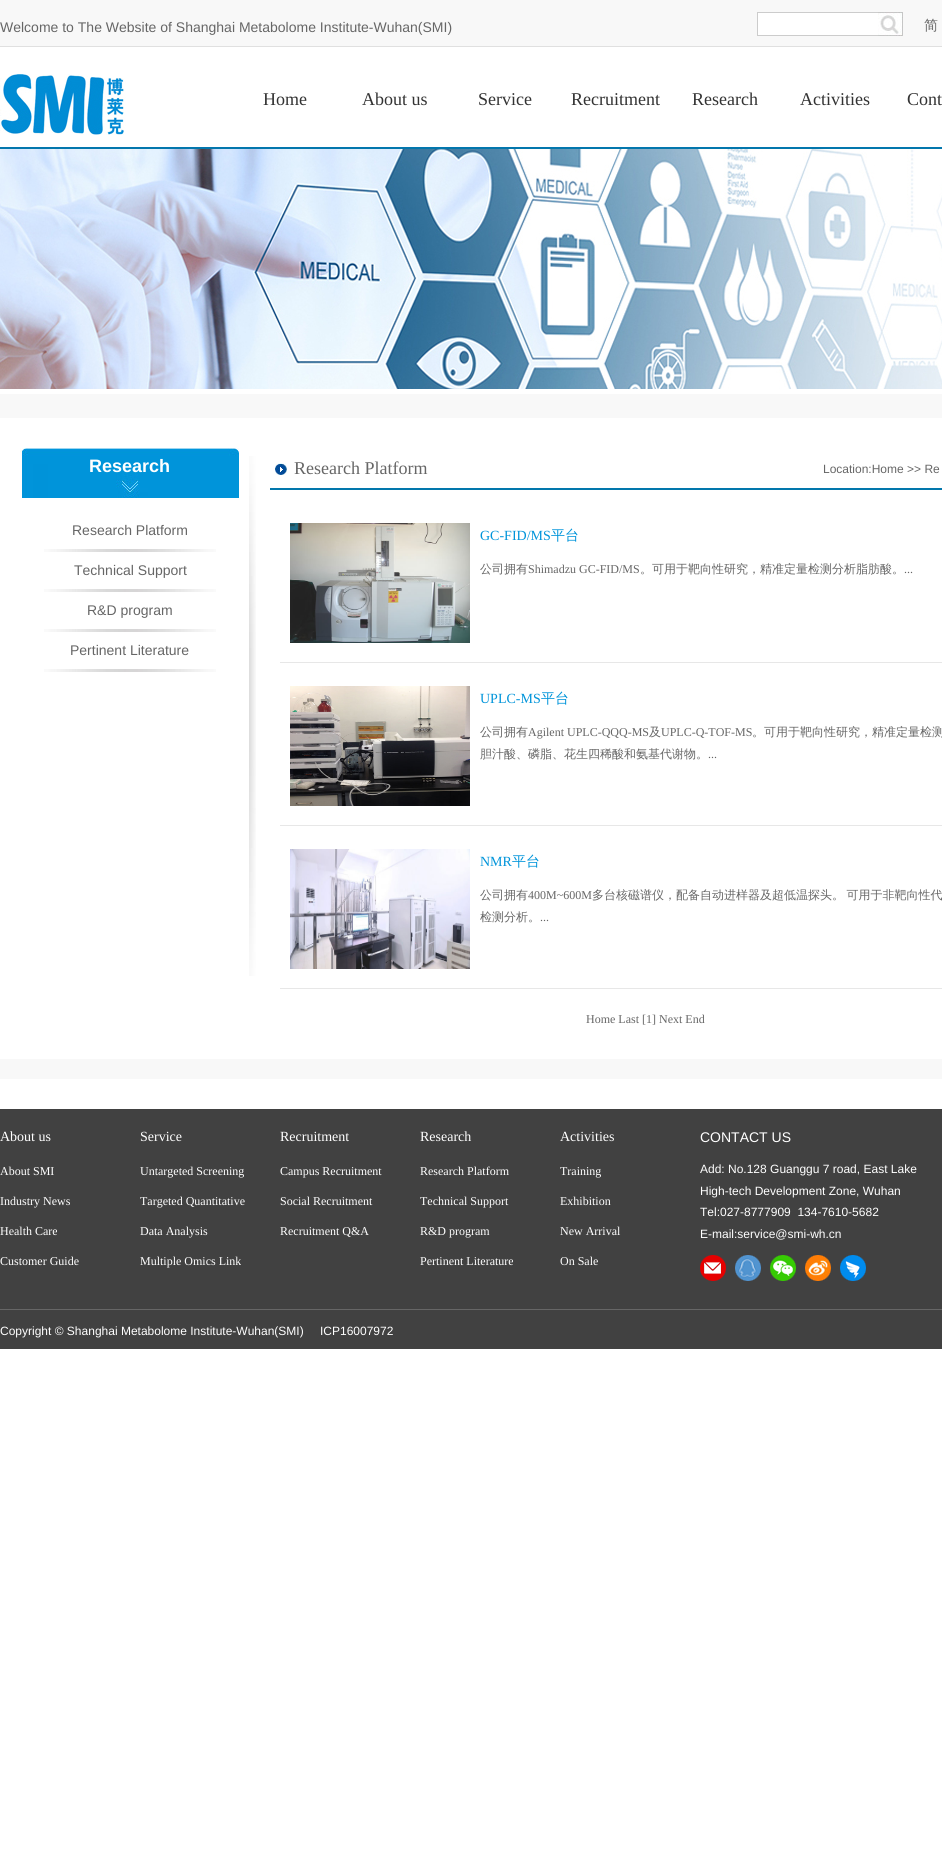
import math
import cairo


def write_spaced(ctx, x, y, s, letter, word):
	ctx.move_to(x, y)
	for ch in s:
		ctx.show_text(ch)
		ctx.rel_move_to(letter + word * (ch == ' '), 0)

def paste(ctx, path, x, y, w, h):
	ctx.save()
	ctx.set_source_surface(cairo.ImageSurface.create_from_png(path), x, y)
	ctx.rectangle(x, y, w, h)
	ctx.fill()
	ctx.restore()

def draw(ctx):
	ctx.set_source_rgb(1, 1, 1)
	ctx.paint()
	ctx.set_source_rgb(0.969, 0.969, 0.969)
	ctx.rectangle(0, 0, 942, 46)
	ctx.fill()
	ctx.set_source_rgb(0.878, 0.878, 0.878)
	ctx.rectangle(0, 46, 942, 1)
	ctx.fill()
	ctx.select_font_face('Liberation Sans')
	ctx.set_font_size(14)
	ctx.set_source_rgb(0.4, 0.4, 0.4)
	ctx.move_to(0, 32)
	ctx.show_text('Welcome to The Website of Shanghai Metabolome Institute-Wuhan(SMI)')
	ctx.set_source_rgb(1, 1, 1)
	ctx.rectangle(758, 13, 120, 22)
	ctx.fill()
	ctx.set_source_rgb(0.8, 0.8, 0.8)
	ctx.rectangle(757, 12, 121, 1)
	ctx.rectangle(757, 35, 121, 1)
	ctx.rectangle(757, 12, 1, 24)
	ctx.fill()
	paste(ctx, 'media/1.png', 878, 12, 25, 24)
	ctx.select_font_face('WenQuanYi Zen Hei Medium')
	ctx.set_source_rgb(0.4, 0.4, 0.4)
	ctx.move_to(924, 30)
	ctx.show_text('简')
	paste(ctx, 'media/2.png', 0, 147, 942, 2)
	paste(ctx, 'media/3.png', 0, 74, 126, 61)
	ctx.select_font_face('Liberation Serif')
	ctx.set_font_size(18)
	ctx.set_source_rgb(0.2, 0.2, 0.2)
	for x, y, s in [
		(263, 105, 'Home'),
		(362, 105, 'About us'),
		(478, 105, 'Service'),
		(571, 105, 'Recruitment'),
		(692, 105, 'Research'),
		(800, 105, 'Activities'),
		(907, 105, 'Cont'),
	]:
		ctx.move_to(x, y)
		ctx.show_text(s)
	paste(ctx, 'media/4.png', 0, 149, 942, 240)
	ctx.set_source_rgb(0.969, 0.969, 0.969)
	ctx.rectangle(0, 394, 942, 685)
	ctx.fill()
	ctx.set_source_rgb(1, 1, 1)
	ctx.rectangle(0, 418, 942, 641)
	ctx.fill()
	paste(ctx, 'media/5.png', 249, 456, 7, 520)
	paste(ctx, 'media/6.png', 20, 448, 220, 50)
	ctx.select_font_face('Liberation Sans', cairo.FONT_SLANT_NORMAL, cairo.FONT_WEIGHT_BOLD)
	ctx.move_to(89, 472)
	ctx.show_text('Research')
	paste(ctx, 'media/7.png', 44, 549, 172, 3)
	ctx.select_font_face('Liberation Sans')
	ctx.set_font_size(14)
	ctx.set_source_rgb(0.4, 0.4, 0.4)
	ctx.move_to(72, 535)
	ctx.show_text('Research Platform')
	paste(ctx, 'media/7.png', 44, 589, 172, 3)
	ctx.move_to(74, 575)
	ctx.show_text('Technical Support')
	paste(ctx, 'media/7.png', 44, 629, 172, 3)
	ctx.move_to(87, 615)
	ctx.show_text('R&D program')
	paste(ctx, 'media/7.png', 44, 669, 172, 3)
	ctx.move_to(70, 655)
	ctx.show_text('Pertinent Literature')
	ctx.set_source_rgb(0.008, 0.467, 0.675)
	ctx.rectangle(270, 488, 672, 2)
	ctx.fill()
	paste(ctx, 'media/8.png', 275, 463, 12, 12)
	ctx.select_font_face('Liberation Serif')
	ctx.set_font_size(18)
	ctx.set_source_rgb(0.4, 0.4, 0.4)
	ctx.move_to(294, 474)
	ctx.show_text('Research Platform')
	ctx.select_font_face('Liberation Sans')
	ctx.set_font_size(12)
	ctx.move_to(823, 473)
	ctx.show_text('Location:Home >> Re')
	ctx.set_source_rgb(0.906, 0.906, 0.906)
	ctx.rectangle(280, 662, 662, 1)
	ctx.fill()
	paste(ctx, 'media/9.png', 290, 523, 180, 120)
	ctx.select_font_face('Liberation Serif')
	ctx.set_font_size(14)
	ctx.set_source_rgb(0, 0.58, 0.855)
	ctx.move_to(480, 540)
	ctx.show_text('GC-FID/MS')
	ctx.select_font_face('WenQuanYi Zen Hei Medium')
	ctx.move_to(551, 540)
	ctx.show_text('平台')
	ctx.set_font_size(12)
	ctx.set_source_rgb(0.4, 0.4, 0.4)
	ctx.move_to(480, 573)
	ctx.show_text('公司拥有')
	ctx.select_font_face('Liberation Serif')
	ctx.move_to(528, 573)
	ctx.show_text('Shimadzu GC-FID/MS')
	ctx.select_font_face('WenQuanYi Zen Hei Medium')
	ctx.move_to(640, 573)
	ctx.show_text('。可用于靶向性研究，精准定量检测分析脂肪酸。')
	ctx.select_font_face('Liberation Serif')
	ctx.move_to(904, 573)
	ctx.show_text('...')
	ctx.set_source_rgb(0.906, 0.906, 0.906)
	ctx.rectangle(280, 825, 662, 1)
	ctx.fill()
	paste(ctx, 'media/10.png', 290, 686, 180, 120)
	ctx.set_font_size(14)
	ctx.set_source_rgb(0, 0.58, 0.855)
	ctx.move_to(480, 703)
	ctx.show_text('UPLC-MS')
	ctx.select_font_face('WenQuanYi Zen Hei Medium')
	ctx.move_to(541, 703)
	ctx.show_text('平台')
	ctx.set_font_size(12)
	ctx.set_source_rgb(0.4, 0.4, 0.4)
	ctx.move_to(480, 736)
	ctx.show_text('公司拥有')
	ctx.select_font_face('Liberation Serif')
	ctx.move_to(528, 736)
	ctx.show_text('Agilent UPLC-QQQ-MS')
	ctx.select_font_face('WenQuanYi Zen Hei Medium')
	ctx.move_to(649, 736)
	ctx.show_text('及')
	ctx.select_font_face('Liberation Serif')
	ctx.move_to(661, 736)
	ctx.show_text('UPLC-Q-TOF-MS')
	ctx.select_font_face('WenQuanYi Zen Hei Medium')
	ctx.move_to(752, 736)
	ctx.show_text('。可用于靶向性研究，精准定量检测')
	ctx.move_to(480, 758)
	ctx.show_text('胆汁酸、磷脂、花生四稀酸和氨基代谢物。')
	ctx.select_font_face('Liberation Serif')
	ctx.move_to(708, 758)
	ctx.show_text('...')
	ctx.set_source_rgb(0.906, 0.906, 0.906)
	ctx.rectangle(280, 988, 662, 1)
	ctx.fill()
	paste(ctx, 'media/11.png', 290, 849, 180, 120)
	ctx.set_font_size(14)
	ctx.set_source_rgb(0, 0.58, 0.855)
	ctx.move_to(480, 866)
	ctx.show_text('NMR')
	ctx.select_font_face('WenQuanYi Zen Hei Medium')
	ctx.move_to(512, 866)
	ctx.show_text('平台')
	ctx.set_font_size(12)
	ctx.set_source_rgb(0.4, 0.4, 0.4)
	ctx.move_to(480, 899)
	ctx.show_text('公司拥有')
	ctx.select_font_face('Liberation Serif')
	ctx.move_to(528, 899)
	ctx.show_text('400M~600M')
	ctx.select_font_face('WenQuanYi Zen Hei Medium')
	write_spaced(ctx, 592, 899, '多台核磁谱仪，配备自动进样器及超低温探头。 可用于非靶向性代', 0, -1)
	ctx.move_to(480, 921)
	ctx.show_text('检测分析。')
	ctx.select_font_face('Liberation Serif')
	ctx.move_to(540, 921)
	ctx.show_text('...')
	ctx.move_to(586, 1023)
	ctx.show_text('Home Last [1] Next End')
	ctx.set_source_rgb(0.255, 0.255, 0.255)
	ctx.rectangle(0, 1109, 942, 240)
	ctx.fill()
	ctx.set_font_size(14)
	ctx.set_source_rgb(1, 1, 1)
	ctx.move_to(0, 1141)
	ctx.show_text('About us')
	ctx.set_font_size(12)
	for x, y, s in [
		(0, 1175, 'About SMI'),
		(0, 1205, 'Industry News'),
		(0, 1235, 'Health Care'),
		(0, 1265, 'Customer Guide'),
	]:
		ctx.move_to(x, y)
		ctx.show_text(s)
	ctx.set_font_size(14)
	ctx.move_to(140, 1141)
	ctx.show_text('Service')
	ctx.set_font_size(12)
	for x, y, s in [
		(140, 1175, 'Untargeted Screening'),
		(140, 1205, 'Targeted Quantitative'),
		(140, 1235, 'Data Analysis'),
		(140, 1265, 'Multiple Omics Link'),
	]:
		ctx.move_to(x, y)
		ctx.show_text(s)
	ctx.set_font_size(14)
	ctx.move_to(280, 1141)
	ctx.show_text('Recruitment')
	ctx.set_font_size(12)
	for x, y, s in [
		(280, 1175, 'Campus Recruitment'),
		(280, 1205, 'Social Recruitment'),
		(280, 1235, 'Recruitment Q&A'),
	]:
		ctx.move_to(x, y)
		ctx.show_text(s)
	ctx.set_font_size(14)
	ctx.move_to(420, 1141)
	ctx.show_text('Research')
	ctx.set_font_size(12)
	for x, y, s in [
		(420, 1175, 'Research Platform'),
		(420, 1205, 'Technical Support'),
		(420, 1235, 'R&D program'),
		(420, 1265, 'Pertinent Literature'),
	]:
		ctx.move_to(x, y)
		ctx.show_text(s)
	ctx.set_font_size(14)
	ctx.move_to(560, 1141)
	ctx.show_text('Activities')
	ctx.set_font_size(12)
	for x, y, s in [
		(560, 1175, 'Training'),
		(560, 1205, 'Exhibition'),
		(560, 1235, 'New Arrival'),
		(560, 1265, 'On Sale'),
	]:
		ctx.move_to(x, y)
		ctx.show_text(s)
	ctx.select_font_face('Liberation Sans')
	ctx.set_font_size(14)
	ctx.move_to(700, 1142)
	ctx.show_text('CONTACT US')
	ctx.set_font_size(12)
	for x, y, s in [
		(700, 1173, 'Add: No.128 Guanggu 7 road, East Lake'),
		(700, 1195, 'High-tech Development Zone, Wuhan'),
		(700, 1216, 'Tel:027-8777909  134-7610-5682'),
		(700, 1238, 'E-mail:service@smi-wh.cn'),
	]:
		ctx.move_to(x, y)
		ctx.show_text(s)
	paste(ctx, 'media/12.png', 700, 1255, 26, 26)
	paste(ctx, 'media/13.png', 735, 1255, 26, 26)
	paste(ctx, 'media/14.png', 770, 1255, 26, 26)
	paste(ctx, 'media/15.png', 805, 1255, 26, 26)
	paste(ctx, 'media/16.png', 840, 1255, 26, 26)
	ctx.set_source_rgb(0.4, 0.4, 0.4)
	ctx.rectangle(0, 1309, 942, 1)
	ctx.fill()
	ctx.set_source_rgb(1, 1, 1)
	ctx.move_to(0, 1335)
	ctx.show_text('Copyright © Shanghai Metabolome Institute-Wuhan(SMI)')
	ctx.move_to(320, 1335)
	ctx.show_text('ICP16007972')


surface = cairo.ImageSurface(cairo.FORMAT_RGB24, 942, 1855)
ctx = cairo.Context(surface)
options = cairo.FontOptions()
options.set_hint_metrics(cairo.HINT_METRICS_OFF)
options.set_hint_style(cairo.HINT_STYLE_NONE)
ctx.set_font_options(options)
ctx.set_miter_limit(4)
draw(ctx)
surface.write_to_png('image.png')
